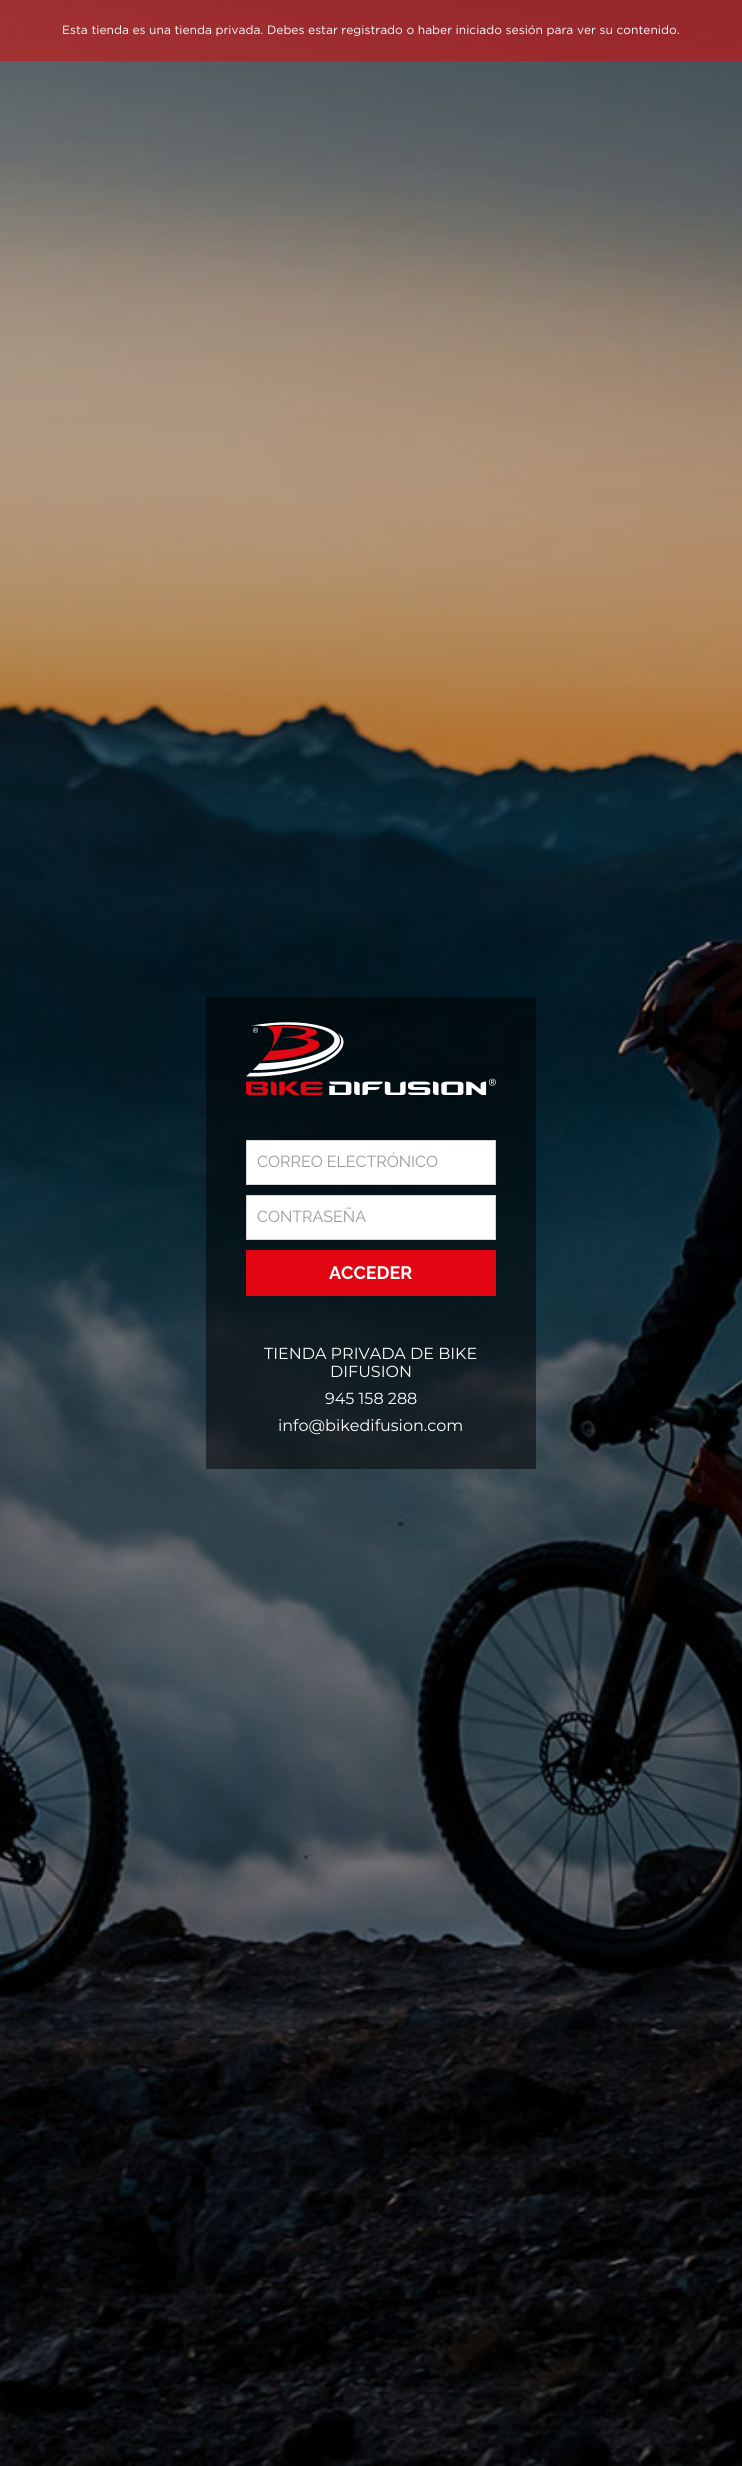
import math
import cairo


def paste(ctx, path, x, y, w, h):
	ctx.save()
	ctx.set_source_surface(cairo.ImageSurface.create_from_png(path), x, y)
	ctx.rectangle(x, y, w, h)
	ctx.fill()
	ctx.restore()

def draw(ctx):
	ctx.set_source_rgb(1, 1, 1)
	ctx.paint()
	paste(ctx, 'media/1.png', 0, 0, 742, 2466)
	ctx.set_source_rgba(0.933, 0, 0, 0.5)
	ctx.rectangle(0, 0, 742, 61)
	ctx.fill()
	ctx.select_font_face('Gotham')
	ctx.set_font_size(12)
	ctx.set_source_rgb(1, 1, 1)
	ctx.move_to(62, 34)
	ctx.show_text('Esta tienda es una tienda privada. Debes estar registrado o haber iniciado sesión para ver su contenido.')
	ctx.set_source_rgba(0, 0, 0, 0.5)
	ctx.rectangle(206, 997, 330, 472)
	ctx.fill()
	paste(ctx, 'media/2.png', 246, 1022, 250, 73)
	ctx.set_source_rgb(1, 1, 1)
	ctx.rectangle(246.5, 1140.5, 249, 44)
	ctx.fill_preserve()
	ctx.set_source_rgb(0.839, 0.831, 0.831)
	ctx.set_line_width(1)
	ctx.stroke()
	ctx.select_font_face('Raleway')
	ctx.set_font_size(16)
	ctx.set_source_rgb(0.6, 0.6, 0.6)
	ctx.move_to(257, 1167)
	ctx.show_text('CORREO ELECTRÓNICO')
	ctx.set_source_rgb(1, 1, 1)
	ctx.rectangle(246.5, 1195.5, 249, 44)
	ctx.fill_preserve()
	ctx.set_source_rgb(0.839, 0.831, 0.831)
	ctx.stroke()
	ctx.set_source_rgb(0.6, 0.6, 0.6)
	ctx.move_to(257, 1222)
	ctx.show_text('CONTRASEÑA')
	ctx.set_source_rgb(0.886, 0.024, 0.075)
	ctx.rectangle(246, 1250, 250, 46)
	ctx.fill()
	ctx.select_font_face('Raleway', cairo.FONT_SLANT_NORMAL, cairo.FONT_WEIGHT_BOLD)
	ctx.set_font_size(18)
	ctx.set_source_rgb(1, 1, 1)
	ctx.move_to(329, 1279)
	ctx.show_text('ACCEDER')
	ctx.select_font_face('Montserrat')
	ctx.set_font_size(16)
	for x, y, s in [
		(264, 1359, 'TIENDA PRIVADA DE BIKE'),
		(330, 1377, 'DIFUSION'),
		(325, 1404, '945 158 288'),
		(278, 1431, 'info@bikedifusion.com'),
	]:
		ctx.move_to(x, y)
		ctx.show_text(s)


surface = cairo.ImageSurface(cairo.FORMAT_RGB24, 742, 2466)
ctx = cairo.Context(surface)
options = cairo.FontOptions()
options.set_hint_metrics(cairo.HINT_METRICS_OFF)
options.set_hint_style(cairo.HINT_STYLE_NONE)
ctx.set_font_options(options)
ctx.set_miter_limit(4)
draw(ctx)
surface.write_to_png('image.png')
